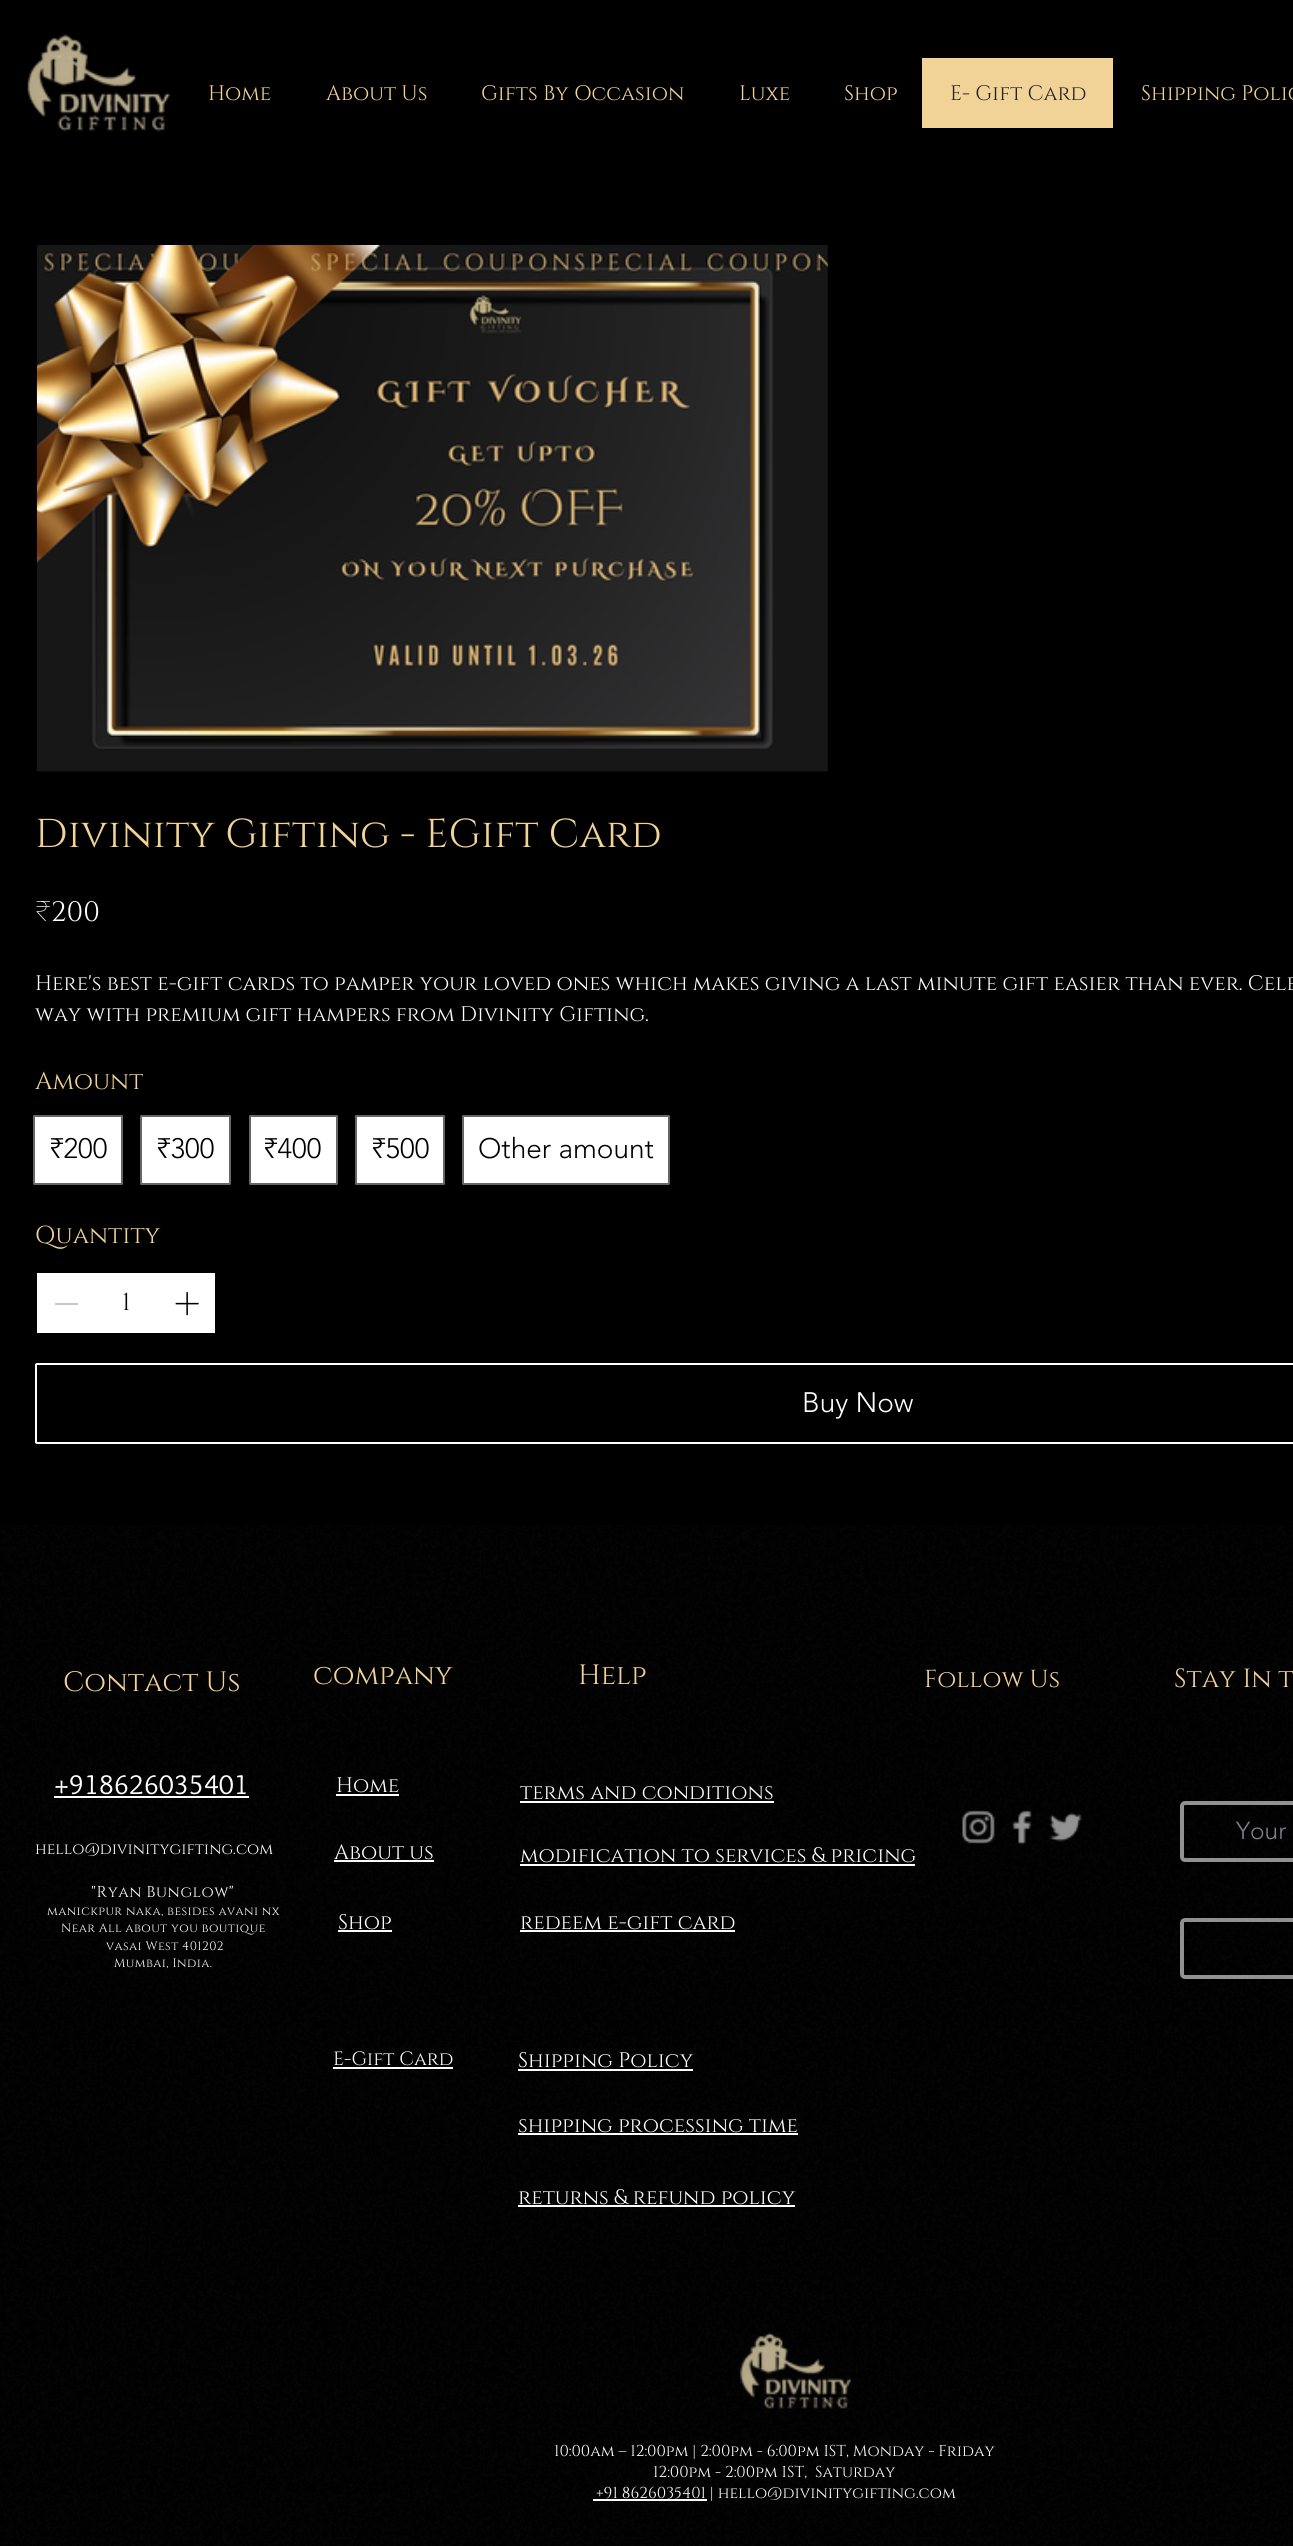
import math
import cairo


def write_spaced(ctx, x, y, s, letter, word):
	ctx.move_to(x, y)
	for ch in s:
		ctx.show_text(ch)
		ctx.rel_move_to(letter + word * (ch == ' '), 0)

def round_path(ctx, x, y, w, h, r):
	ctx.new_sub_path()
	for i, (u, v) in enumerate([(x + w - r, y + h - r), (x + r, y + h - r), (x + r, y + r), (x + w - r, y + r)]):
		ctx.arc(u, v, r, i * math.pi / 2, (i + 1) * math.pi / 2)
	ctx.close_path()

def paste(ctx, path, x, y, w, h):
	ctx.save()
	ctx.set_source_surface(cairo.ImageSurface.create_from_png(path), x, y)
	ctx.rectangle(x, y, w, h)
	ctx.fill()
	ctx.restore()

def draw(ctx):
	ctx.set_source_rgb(0, 0, 0)
	ctx.paint()
	paste(ctx, 'media/1.png', 27, 34, 144, 98)
	ctx.select_font_face('Cinzel')
	ctx.set_font_size(21)
	ctx.set_source_rgb(0.945, 0.824, 0.592)
	for x, y, s in [
		(208, 100, 'Home'),
		(326, 100, 'About Us'),
		(481, 100, 'Gifts By Occasion'),
		(739, 100, 'Luxe'),
		(844, 100, 'Shop'),
	]:
		ctx.move_to(x, y)
		ctx.show_text(s)
	ctx.rectangle(922, 58, 191, 70)
	ctx.fill()
	ctx.set_source_rgb(0.141, 0.137, 0.137)
	ctx.move_to(950, 100)
	ctx.show_text('E- Gift Card')
	ctx.set_source_rgb(0.945, 0.824, 0.592)
	ctx.move_to(1141, 100)
	ctx.show_text('Shipping Polic')
	paste(ctx, 'media/2.png', 36, 245, 792, 527)
	ctx.set_font_size(40.25)
	ctx.move_to(35, 847)
	ctx.show_text('Divinity Gifting - EGift Card')
	ctx.select_font_face('Noto Sans Thin')
	ctx.set_font_size(28)
	ctx.set_source_rgb(1, 1, 1)
	ctx.move_to(35, 921)
	ctx.show_text('₹')
	ctx.select_font_face('Cinzel')
	ctx.move_to(51, 921)
	ctx.show_text('200')
	ctx.set_font_size(21)
	ctx.move_to(35, 990)
	ctx.show_text('Here\'s best e-gift cards to pamper your loved ones which makes giving a last minute gift easier than ever. Cele')
	ctx.move_to(35, 1021)
	ctx.show_text('way with premium gift hampers from Divinity Gifting.')
	ctx.set_font_size(24.5)
	ctx.set_source_rgb(0.945, 0.824, 0.592)
	ctx.move_to(35, 1089)
	ctx.show_text('Amount')
	ctx.set_source_rgb(1, 1, 1)
	round_path(ctx, 33, 1115, 90, 70, 2)
	ctx.fill()
	round_path(ctx, 34, 1116, 88, 68, 1)
	ctx.set_source_rgba(0, 0, 0, 0.6)
	ctx.stroke()
	ctx.select_font_face('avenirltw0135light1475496 Light')
	ctx.set_font_size(28)
	ctx.set_source_rgb(0, 0, 0)
	ctx.move_to(49, 1158)
	ctx.show_text('₹200')
	ctx.set_source_rgb(1, 1, 1)
	round_path(ctx, 140, 1115, 91, 70, 2)
	ctx.fill()
	round_path(ctx, 141, 1116, 89, 68, 1)
	ctx.set_source_rgba(0, 0, 0, 0.6)
	ctx.stroke()
	ctx.set_source_rgb(0, 0, 0)
	ctx.move_to(156, 1158)
	ctx.show_text('₹300')
	ctx.set_source_rgb(1, 1, 1)
	round_path(ctx, 249, 1115, 89, 70, 2)
	ctx.fill()
	round_path(ctx, 250, 1116, 87, 68, 1)
	ctx.set_source_rgba(0, 0, 0, 0.6)
	ctx.stroke()
	ctx.set_source_rgb(0, 0, 0)
	ctx.move_to(263, 1158)
	ctx.show_text('₹400')
	ctx.set_source_rgb(1, 1, 1)
	round_path(ctx, 355, 1115, 90, 70, 2)
	ctx.fill()
	round_path(ctx, 356, 1116, 88, 68, 1)
	ctx.set_source_rgba(0, 0, 0, 0.6)
	ctx.stroke()
	ctx.set_source_rgb(0, 0, 0)
	ctx.move_to(371, 1158)
	ctx.show_text('₹500')
	ctx.set_source_rgb(1, 1, 1)
	round_path(ctx, 462, 1115, 208, 70, 2)
	ctx.fill()
	round_path(ctx, 463, 1116, 206, 68, 1)
	ctx.set_source_rgba(0, 0, 0, 0.6)
	ctx.stroke()
	ctx.set_source_rgb(0, 0, 0)
	ctx.move_to(478, 1158)
	ctx.show_text('Other amount')
	ctx.select_font_face('Cinzel')
	ctx.set_font_size(24.5)
	ctx.set_source_rgb(0.945, 0.824, 0.592)
	ctx.move_to(35, 1243)
	ctx.show_text('Quantity')
	ctx.set_source_rgb(1, 1, 1)
	ctx.rectangle(37, 1273, 178, 60)
	ctx.fill()
	ctx.set_source_rgb(0.78, 0.78, 0.78)
	ctx.rectangle(55, 1303, 23, 2)
	ctx.fill()
	ctx.set_source_rgb(0, 0, 0)
	ctx.move_to(122, 1310)
	ctx.show_text('1')
	paste(ctx, 'media/3.png', 175, 1292, 24, 24)
	round_path(ctx, 36, 1364, 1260, 79, 1)
	ctx.set_source_rgb(1, 1, 1)
	ctx.stroke()
	ctx.select_font_face('avenirltw0135light1475496 Light')
	ctx.set_font_size(28)
	ctx.move_to(802, 1412)
	ctx.show_text('Buy Now')
	paste(ctx, 'media/4.png', 0, 1525, 1293, 1021)
	ctx.select_font_face('Cinzel')
	ctx.set_source_rgb(0.945, 0.824, 0.592)
	for x, y, s in [
		(63, 1691, 'Contact Us'),
		(313, 1684, 'company'),
		(578, 1684, 'Help'),
	]:
		ctx.move_to(x, y)
		ctx.show_text(s)
	ctx.set_font_size(24.5)
	ctx.move_to(924, 1687)
	ctx.show_text('Follow Us')
	ctx.set_font_size(26.25)
	ctx.move_to(1174, 1687)
	ctx.show_text('Stay In t')
	round_path(ctx, 1182, 1803, 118, 57, 3)
	ctx.set_source_rgb(0.569, 0.569, 0.569)
	ctx.set_line_width(4)
	ctx.stroke()
	ctx.select_font_face('avenirltw0135light1475496 Light')
	ctx.set_font_size(24.5)
	ctx.set_source_rgb(0.498, 0.502, 0.541)
	ctx.move_to(1236, 1839)
	ctx.show_text('Your')
	round_path(ctx, 1182, 1920, 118, 57, 3)
	ctx.set_source_rgb(0.569, 0.569, 0.569)
	ctx.stroke()
	ctx.select_font_face('Overlock')
	ctx.set_font_size(28)
	ctx.set_source_rgb(1, 1, 1)
	ctx.move_to(54, 1794)
	ctx.show_text('+918626035401')
	ctx.rectangle(54, 1796, 195, 2)
	ctx.fill()
	ctx.select_font_face('Cinzel')
	ctx.set_font_size(21)
	ctx.move_to(336, 1792)
	ctx.show_text('Home')
	ctx.rectangle(336, 1794, 63, 2)
	ctx.fill()
	ctx.move_to(520, 1799)
	ctx.show_text('terms and conditions')
	ctx.rectangle(520, 1801, 254, 2)
	ctx.fill()
	paste(ctx, 'media/5.png', 962, 1810, 33, 34)
	paste(ctx, 'media/6.png', 1012, 1810, 20, 35)
	paste(ctx, 'media/7.png', 1049, 1812, 33, 30)
	ctx.set_font_size(15.75)
	ctx.move_to(35, 1854)
	ctx.show_text('hello@divinitygifting.com')
	ctx.set_font_size(21)
	ctx.move_to(334, 1859)
	ctx.show_text('About us')
	ctx.rectangle(334, 1860, 100, 2)
	ctx.fill()
	ctx.move_to(520, 1862)
	ctx.show_text('modification to services & pricing')
	ctx.rectangle(520, 1864, 395, 2)
	ctx.fill()
	ctx.set_font_size(15.75)
	write_spaced(ctx, 91, 1897, '"Ryan Bunglow"', 0.5, 0)
	ctx.set_font_size(12.25)
	for x, y, s in [
		(47, 1915, 'manickpur naka, besides avani nx'),
		(61, 1932, 'Near All about you boutique'),
		(106, 1950, 'vasai West 401202'),
		(114, 1967, 'Mumbai, India.'),
	]:
		write_spaced(ctx, x, y, s, 0.4, 0)
	ctx.set_font_size(21)
	ctx.move_to(338, 1929)
	ctx.show_text('Shop')
	ctx.rectangle(338, 1930, 54, 2)
	ctx.fill()
	ctx.move_to(520, 1929)
	ctx.show_text('redeem e-gift card')
	ctx.rectangle(520, 1930, 215, 2)
	ctx.fill()
	ctx.set_font_size(19.25)
	ctx.move_to(333, 2065)
	ctx.show_text('E-Gift Card')
	ctx.rectangle(333, 2067, 120, 2)
	ctx.fill()
	ctx.set_font_size(21)
	ctx.move_to(518, 2067)
	ctx.show_text('Shipping Policy')
	ctx.rectangle(518, 2069, 175, 2)
	ctx.fill()
	ctx.move_to(518, 2132)
	ctx.show_text('shipping processing time')
	ctx.rectangle(518, 2133, 280, 2)
	ctx.fill()
	ctx.move_to(518, 2204)
	ctx.show_text('returns & refund policy')
	ctx.rectangle(518, 2205, 277, 2)
	ctx.fill()
	paste(ctx, 'media/8.png', 739, 2332, 112, 77)
	ctx.set_font_size(15.75)
	ctx.move_to(554, 2456)
	ctx.show_text('10:00am – 12:00pm | 2:00pm - 6:00pm IST, Monday - Friday')
	ctx.move_to(653, 2477)
	ctx.show_text('12:00pm - 2:00pm IST,  Saturday')
	ctx.rectangle(593, 2499, 114, 2)
	ctx.fill()
	ctx.move_to(596, 2498)
	ctx.show_text('+91 8626035401 | hello@divinitygifting.com')


surface = cairo.ImageSurface(cairo.FORMAT_RGB24, 1293, 2546)
ctx = cairo.Context(surface)
options = cairo.FontOptions()
options.set_hint_metrics(cairo.HINT_METRICS_OFF)
options.set_hint_style(cairo.HINT_STYLE_NONE)
ctx.set_font_options(options)
ctx.set_miter_limit(4)
draw(ctx)
surface.write_to_png('image.png')
